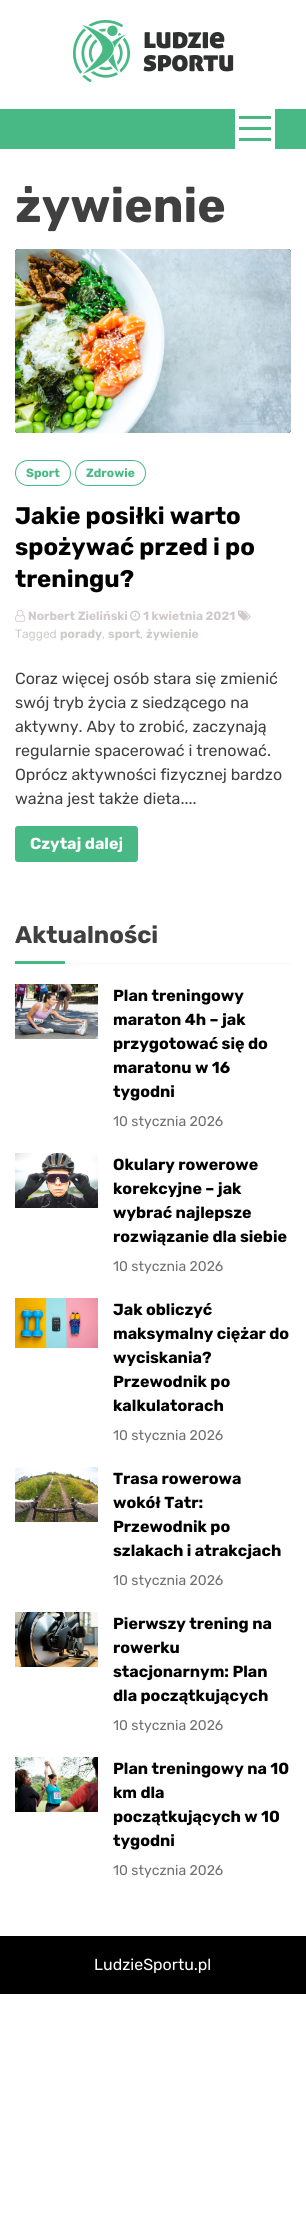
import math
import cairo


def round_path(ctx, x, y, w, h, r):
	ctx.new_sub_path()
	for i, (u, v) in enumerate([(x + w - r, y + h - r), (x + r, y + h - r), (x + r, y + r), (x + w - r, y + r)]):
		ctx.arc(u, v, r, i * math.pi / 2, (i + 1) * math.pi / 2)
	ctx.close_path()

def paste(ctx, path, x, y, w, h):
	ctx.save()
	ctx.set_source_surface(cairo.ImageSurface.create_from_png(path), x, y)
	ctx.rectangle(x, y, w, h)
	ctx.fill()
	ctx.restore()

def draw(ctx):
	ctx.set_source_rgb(1, 1, 1)
	ctx.paint()
	paste(ctx, 'media/1.png', 73, 20, 161, 62)
	ctx.set_source_rgb(0.282, 0.725, 0.522)
	ctx.rectangle(0, 109, 306, 40)
	ctx.fill()
	ctx.set_source_rgb(1, 1, 1)
	ctx.rectangle(235, 109, 40, 40)
	ctx.fill()
	ctx.set_source_rgb(0.282, 0.725, 0.522)
	ctx.rectangle(239, 116, 32, 3)
	ctx.rectangle(239, 127, 32, 3)
	ctx.rectangle(239, 138, 32, 3)
	ctx.fill()
	ctx.select_font_face('Rubik', cairo.FONT_SLANT_NORMAL, cairo.FONT_WEIGHT_BOLD)
	ctx.set_font_size(48)
	ctx.set_source_rgb(0.251, 0.251, 0.251)
	ctx.move_to(15, 222)
	ctx.show_text('żywienie')
	ctx.set_source_rgb(0, 0, 0)
	round_path(ctx, 15, 249, 276, 184, 3)
	ctx.fill()
	paste(ctx, 'media/2.png', 15, 249, 276, 184)
	round_path(ctx, 15.5, 460.5, 55, 25, 12.5)
	ctx.set_source_rgb(0.282, 0.725, 0.522)
	ctx.set_line_width(1)
	ctx.stroke()
	ctx.set_font_size(12)
	ctx.move_to(26, 477)
	ctx.show_text('Sport')
	round_path(ctx, 75.5, 460.5, 70, 25, 12.5)
	ctx.stroke()
	ctx.move_to(86, 477)
	ctx.show_text('Zdrowie')
	ctx.set_font_size(24)
	ctx.set_source_rgb(0, 0, 0)
	for x, y, s in [
		(15, 524, 'Jakie posiłki warto'),
		(15, 555, 'spożywać przed i po'),
		(15, 587, 'treningu?'),
	]:
		ctx.move_to(x, y)
		ctx.show_text(s)
	paste(ctx, 'media/3.png', 15, 609, 11, 13)
	ctx.set_font_size(12)
	ctx.set_source_rgb(0.816, 0.796, 0.796)
	ctx.move_to(28, 620)
	ctx.show_text('Norbert Zieliński')
	paste(ctx, 'media/4.png', 130, 610, 11, 11)
	ctx.move_to(143, 620)
	ctx.show_text('1 kwietnia 2021')
	paste(ctx, 'media/5.png', 238, 610, 13, 11)
	ctx.select_font_face('Rubik')
	ctx.move_to(15, 638)
	ctx.show_text('Tagged')
	ctx.select_font_face('Rubik', cairo.FONT_SLANT_NORMAL, cairo.FONT_WEIGHT_BOLD)
	ctx.move_to(60, 638)
	ctx.show_text('porady')
	ctx.select_font_face('Rubik')
	ctx.move_to(102, 638)
	ctx.show_text(',')
	ctx.select_font_face('Rubik', cairo.FONT_SLANT_NORMAL, cairo.FONT_WEIGHT_BOLD)
	ctx.move_to(108, 638)
	ctx.show_text('sport')
	ctx.select_font_face('Rubik')
	ctx.move_to(140, 638)
	ctx.show_text(',')
	ctx.select_font_face('Rubik', cairo.FONT_SLANT_NORMAL, cairo.FONT_WEIGHT_BOLD)
	ctx.move_to(146, 638)
	ctx.show_text('żywienie')
	ctx.select_font_face('Rubik')
	ctx.set_font_size(16)
	ctx.set_source_rgb(0.251, 0.251, 0.251)
	for x, y, s in [
		(15, 684, 'Coraz więcej osób stara się zmienić'),
		(15, 708, 'swój tryb życia z siedzącego na'),
		(15, 732, 'aktywny. Aby to zrobić, zaczynają'),
		(15, 756, 'regularnie spacerować i trenować.'),
		(15, 780, 'Oprócz aktywności fizycznej bardzo'),
		(15, 804, 'ważna jest także dieta....'),
	]:
		ctx.move_to(x, y)
		ctx.show_text(s)
	ctx.set_source_rgb(0.282, 0.725, 0.522)
	round_path(ctx, 15, 826, 123, 36, 3)
	ctx.fill()
	ctx.select_font_face('Rubik', cairo.FONT_SLANT_NORMAL, cairo.FONT_WEIGHT_BOLD)
	ctx.set_source_rgb(1, 1, 1)
	ctx.move_to(30, 849)
	ctx.show_text('Czytaj dalej')
	ctx.set_source_rgb(0.969, 0.969, 0.969)
	ctx.rectangle(65, 963, 226, 1)
	ctx.fill()
	ctx.set_font_size(24)
	ctx.set_source_rgb(0.251, 0.251, 0.251)
	ctx.move_to(15, 943)
	ctx.show_text('Aktualności')
	ctx.set_source_rgb(0.282, 0.725, 0.522)
	ctx.rectangle(15, 961, 50, 3)
	ctx.fill()
	paste(ctx, 'media/6.png', 15, 984, 83, 55)
	ctx.set_font_size(16)
	ctx.set_source_rgb(0, 0, 0)
	for x, y, s in [
		(113, 1001, 'Plan treningowy'),
		(113, 1025, 'maraton 4h – jak'),
		(113, 1049, 'przygotować się do'),
		(113, 1073, 'maratonu w 16'),
		(113, 1097, 'tygodni'),
	]:
		ctx.move_to(x, y)
		ctx.show_text(s)
	ctx.select_font_face('Rubik')
	ctx.set_font_size(14)
	ctx.set_source_rgb(0.439, 0.439, 0.439)
	ctx.move_to(113, 1126)
	ctx.show_text('10 stycznia 2026')
	paste(ctx, 'media/7.png', 15, 1153, 83, 55)
	ctx.select_font_face('Rubik', cairo.FONT_SLANT_NORMAL, cairo.FONT_WEIGHT_BOLD)
	ctx.set_font_size(16)
	ctx.set_source_rgb(0, 0, 0)
	for x, y, s in [
		(113, 1170, 'Okulary rowerowe'),
		(113, 1194, 'korekcyjne – jak'),
		(113, 1218, 'wybrać najlepsze'),
		(113, 1242, 'rozwiązanie dla siebie'),
	]:
		ctx.move_to(x, y)
		ctx.show_text(s)
	ctx.select_font_face('Rubik')
	ctx.set_font_size(14)
	ctx.set_source_rgb(0.439, 0.439, 0.439)
	ctx.move_to(113, 1271)
	ctx.show_text('10 stycznia 2026')
	paste(ctx, 'media/8.png', 15, 1298, 83, 50)
	ctx.select_font_face('Rubik', cairo.FONT_SLANT_NORMAL, cairo.FONT_WEIGHT_BOLD)
	ctx.set_font_size(16)
	ctx.set_source_rgb(0, 0, 0)
	for x, y, s in [
		(113, 1315, 'Jak obliczyć'),
		(113, 1339, 'maksymalny ciężar do'),
		(113, 1363, 'wyciskania?'),
		(113, 1387, 'Przewodnik po'),
		(113, 1411, 'kalkulatorach'),
	]:
		ctx.move_to(x, y)
		ctx.show_text(s)
	ctx.select_font_face('Rubik')
	ctx.set_font_size(14)
	ctx.set_source_rgb(0.439, 0.439, 0.439)
	ctx.move_to(113, 1440)
	ctx.show_text('10 stycznia 2026')
	paste(ctx, 'media/9.png', 15, 1467, 83, 55)
	ctx.select_font_face('Rubik', cairo.FONT_SLANT_NORMAL, cairo.FONT_WEIGHT_BOLD)
	ctx.set_font_size(16)
	ctx.set_source_rgb(0, 0, 0)
	for x, y, s in [
		(113, 1484, 'Trasa rowerowa'),
		(113, 1508, 'wokół Tatr:'),
		(113, 1532, 'Przewodnik po'),
		(113, 1556, 'szlakach i atrakcjach'),
	]:
		ctx.move_to(x, y)
		ctx.show_text(s)
	ctx.select_font_face('Rubik')
	ctx.set_font_size(14)
	ctx.set_source_rgb(0.439, 0.439, 0.439)
	ctx.move_to(113, 1585)
	ctx.show_text('10 stycznia 2026')
	paste(ctx, 'media/10.png', 15, 1612, 83, 55)
	ctx.select_font_face('Rubik', cairo.FONT_SLANT_NORMAL, cairo.FONT_WEIGHT_BOLD)
	ctx.set_font_size(16)
	ctx.set_source_rgb(0, 0, 0)
	for x, y, s in [
		(113, 1629, 'Pierwszy trening na'),
		(113, 1653, 'rowerku'),
		(113, 1677, 'stacjonarnym: Plan'),
		(113, 1701, 'dla początkujących'),
	]:
		ctx.move_to(x, y)
		ctx.show_text(s)
	ctx.select_font_face('Rubik')
	ctx.set_font_size(14)
	ctx.set_source_rgb(0.439, 0.439, 0.439)
	ctx.move_to(113, 1730)
	ctx.show_text('10 stycznia 2026')
	paste(ctx, 'media/11.png', 15, 1757, 83, 55)
	ctx.select_font_face('Rubik', cairo.FONT_SLANT_NORMAL, cairo.FONT_WEIGHT_BOLD)
	ctx.set_font_size(16)
	ctx.set_source_rgb(0, 0, 0)
	for x, y, s in [
		(113, 1774, 'Plan treningowy na 10'),
		(113, 1798, 'km dla'),
		(113, 1822, 'początkujących w 10'),
		(113, 1846, 'tygodni'),
	]:
		ctx.move_to(x, y)
		ctx.show_text(s)
	ctx.select_font_face('Rubik')
	ctx.set_font_size(14)
	ctx.set_source_rgb(0.439, 0.439, 0.439)
	ctx.move_to(113, 1875)
	ctx.show_text('10 stycznia 2026')
	ctx.set_source_rgb(0, 0, 0)
	ctx.rectangle(0, 1936, 306, 58)
	ctx.fill()
	ctx.set_font_size(16)
	ctx.set_source_rgb(1, 1, 1)
	ctx.move_to(94, 1970)
	ctx.show_text('LudzieSportu.pl')


surface = cairo.ImageSurface(cairo.FORMAT_RGB24, 306, 2235)
ctx = cairo.Context(surface)
options = cairo.FontOptions()
options.set_hint_metrics(cairo.HINT_METRICS_OFF)
options.set_hint_style(cairo.HINT_STYLE_NONE)
ctx.set_font_options(options)
ctx.set_miter_limit(4)
draw(ctx)
surface.write_to_png('image.png')
